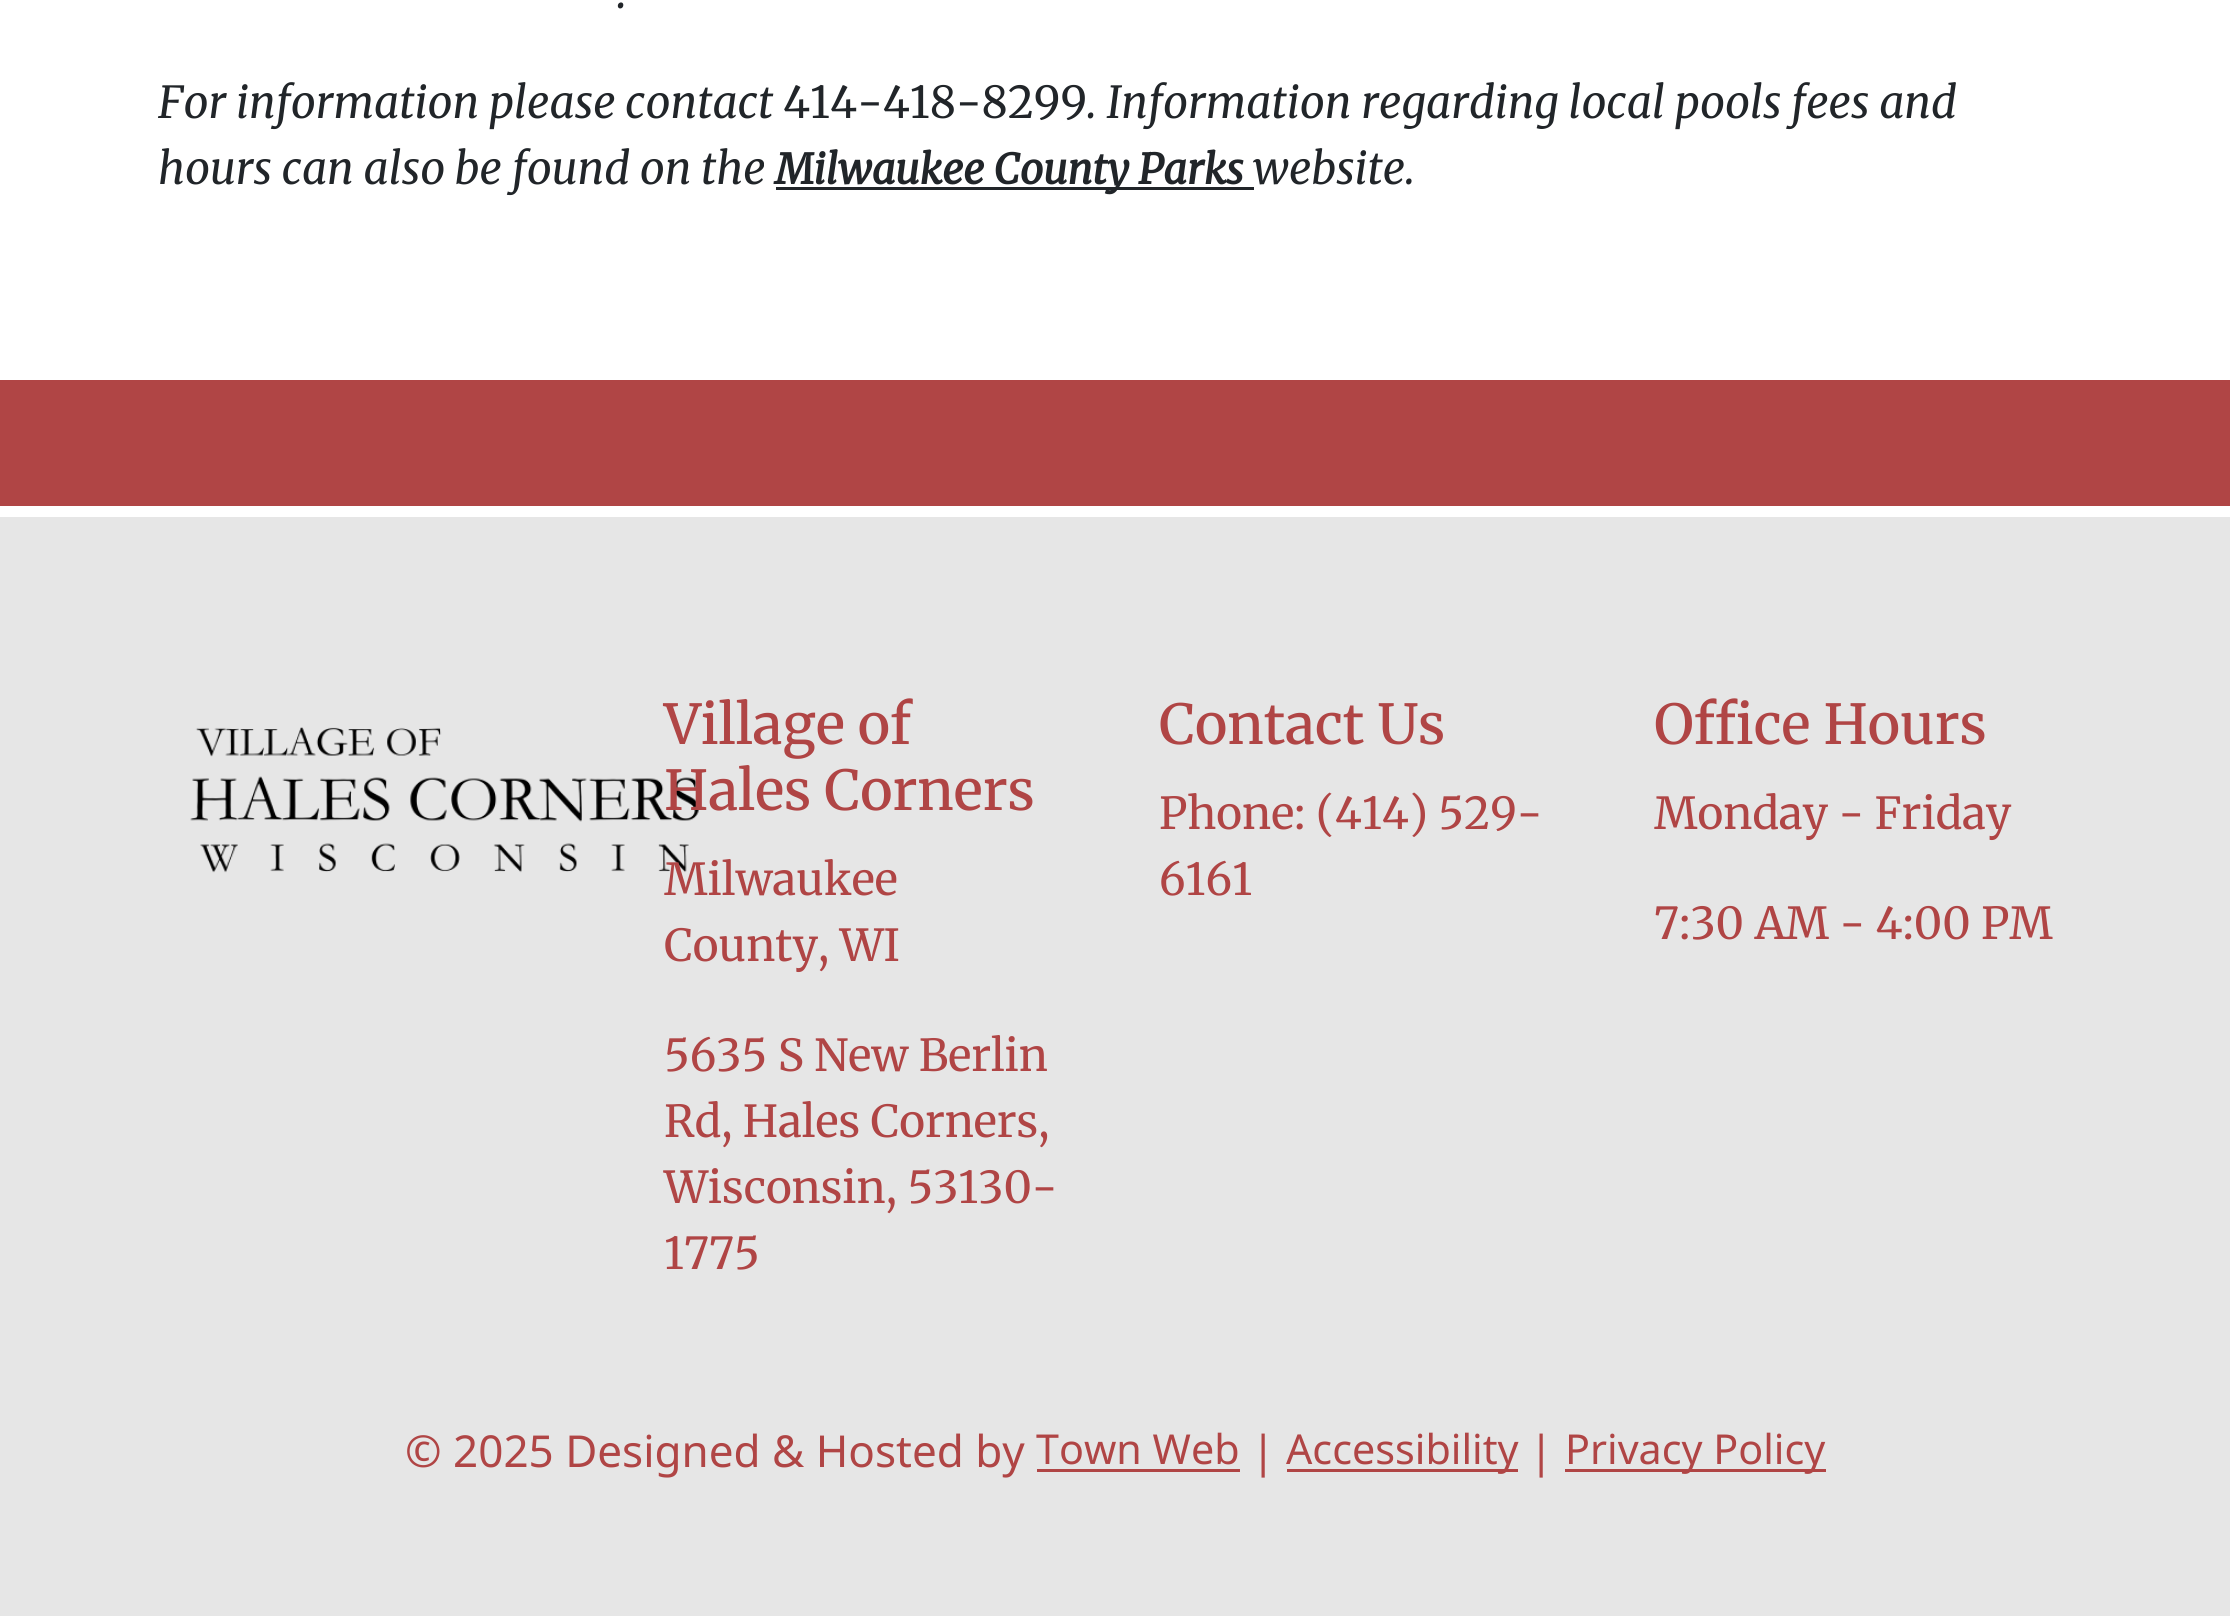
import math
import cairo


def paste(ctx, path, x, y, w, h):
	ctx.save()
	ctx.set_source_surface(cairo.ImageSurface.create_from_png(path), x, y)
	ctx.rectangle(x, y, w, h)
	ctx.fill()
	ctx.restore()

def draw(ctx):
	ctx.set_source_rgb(1, 1, 1)
	ctx.paint()
	ctx.select_font_face('Merriweather Light', cairo.FONT_SLANT_ITALIC)
	ctx.set_font_size(44)
	ctx.set_source_rgb(0.129, 0.145, 0.161)
	ctx.move_to(617, 8)
	ctx.show_text('.')
	ctx.move_to(158, 118)
	ctx.show_text('For information please contact')
	ctx.select_font_face('Merriweather')
	ctx.move_to(783, 118)
	ctx.show_text('414-418-8299')
	ctx.select_font_face('Merriweather Light', cairo.FONT_SLANT_ITALIC)
	ctx.move_to(1087, 118)
	ctx.show_text('. Information regarding local pools fees and')
	ctx.move_to(158, 184)
	ctx.show_text('hours can also be found on the')
	ctx.rectangle(776, 187, 478, 3)
	ctx.fill()
	ctx.select_font_face('Merriweather', cairo.FONT_SLANT_ITALIC, cairo.FONT_WEIGHT_BOLD)
	ctx.set_font_size(41.25)
	ctx.move_to(775, 184)
	ctx.show_text('Milwaukee County Parks')
	ctx.select_font_face('Merriweather Light', cairo.FONT_SLANT_ITALIC)
	ctx.set_font_size(44)
	ctx.move_to(1253, 184)
	ctx.show_text('website.')
	ctx.set_source_rgb(0.902, 0.902, 0.902)
	ctx.rectangle(0, 517, 2230, 1099)
	ctx.fill()
	ctx.set_source_rgb(0.69, 0.271, 0.271)
	ctx.rectangle(0, 380, 2230, 126)
	ctx.fill()
	paste(ctx, 'media/1.png', 190, 727, 510, 146)
	ctx.select_font_face('Merriweather Medium')
	ctx.set_font_size(55)
	ctx.move_to(664, 744)
	ctx.show_text('Village of')
	ctx.move_to(664, 810)
	ctx.show_text('Hales Corners')
	ctx.select_font_face('Merriweather')
	ctx.set_font_size(44)
	for x, y, s in [
		(664, 895, 'Milwaukee'),
		(664, 961, 'County, WI'),
		(664, 1071, '5635 S New Berlin'),
		(664, 1137, 'Rd, Hales Corners,'),
		(664, 1203, 'Wisconsin, 53130-'),
		(664, 1269, '1775'),
	]:
		ctx.move_to(x, y)
		ctx.show_text(s)
	ctx.select_font_face('Merriweather Medium')
	ctx.set_font_size(55)
	ctx.move_to(1159, 744)
	ctx.show_text('Contact Us')
	ctx.select_font_face('Merriweather')
	ctx.set_font_size(44)
	ctx.move_to(1159, 829)
	ctx.show_text('Phone: (414) 529-')
	ctx.move_to(1159, 895)
	ctx.show_text('6161')
	ctx.select_font_face('Merriweather Medium')
	ctx.set_font_size(55)
	ctx.move_to(1654, 744)
	ctx.show_text('Office Hours')
	ctx.select_font_face('Merriweather')
	ctx.set_font_size(44)
	ctx.move_to(1654, 829)
	ctx.show_text('Monday - Friday')
	ctx.move_to(1654, 939)
	ctx.show_text('7:30 AM - 4:00 PM')
	ctx.select_font_face('Noto Sans')
	ctx.move_to(405, 1467)
	ctx.show_text('© 2025 Designed & Hosted by')
	ctx.set_font_size(41.25)
	ctx.move_to(1036, 1464)
	ctx.show_text('Town Web')
	ctx.rectangle(1037, 1469, 203, 3)
	ctx.fill()
	ctx.set_font_size(44)
	ctx.move_to(1251, 1467)
	ctx.show_text('|')
	ctx.rectangle(1287, 1469, 231, 3)
	ctx.fill()
	ctx.set_font_size(41.25)
	ctx.move_to(1286, 1464)
	ctx.show_text('Accessibility')
	ctx.set_font_size(44)
	ctx.move_to(1529, 1467)
	ctx.show_text('|')
	ctx.rectangle(1565, 1469, 261, 3)
	ctx.fill()
	ctx.set_font_size(41.25)
	ctx.move_to(1565, 1464)
	ctx.show_text('Privacy Policy')


surface = cairo.ImageSurface(cairo.FORMAT_RGB24, 2230, 1616)
ctx = cairo.Context(surface)
options = cairo.FontOptions()
options.set_hint_metrics(cairo.HINT_METRICS_OFF)
options.set_hint_style(cairo.HINT_STYLE_NONE)
ctx.set_font_options(options)
ctx.set_miter_limit(4)
draw(ctx)
surface.write_to_png('image.png')
